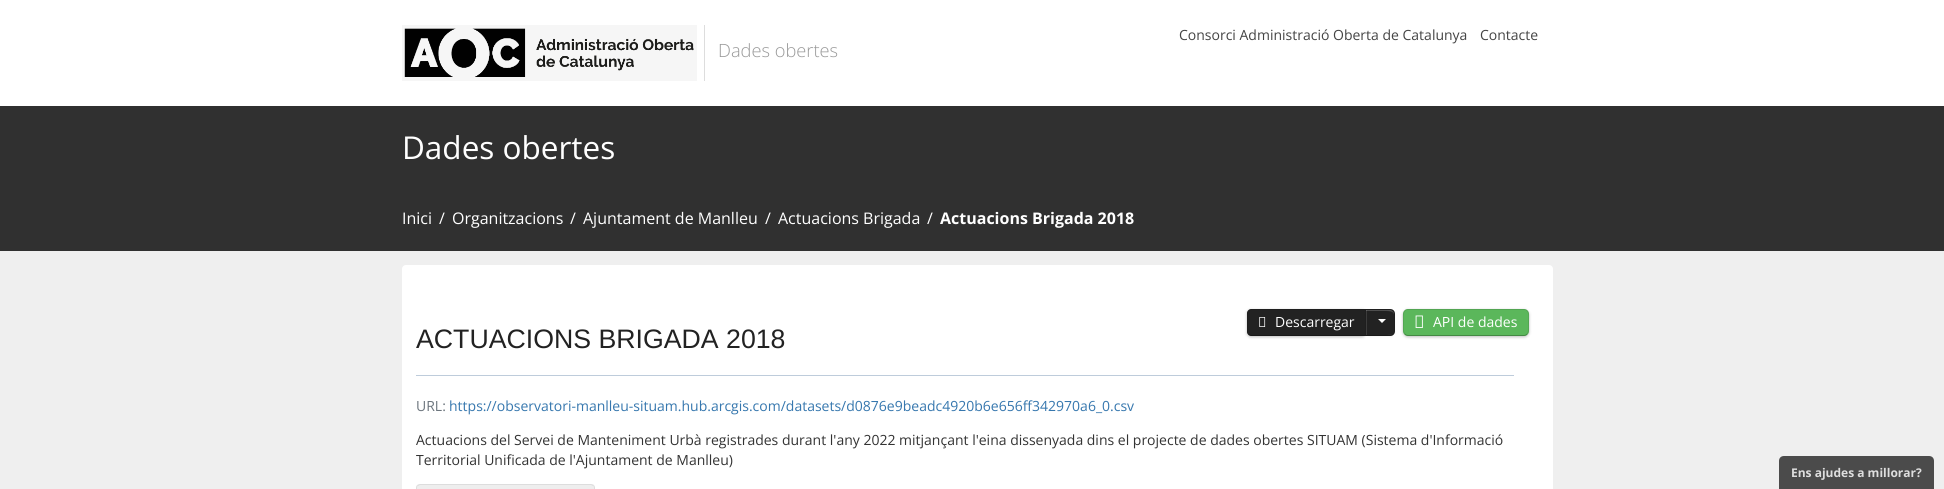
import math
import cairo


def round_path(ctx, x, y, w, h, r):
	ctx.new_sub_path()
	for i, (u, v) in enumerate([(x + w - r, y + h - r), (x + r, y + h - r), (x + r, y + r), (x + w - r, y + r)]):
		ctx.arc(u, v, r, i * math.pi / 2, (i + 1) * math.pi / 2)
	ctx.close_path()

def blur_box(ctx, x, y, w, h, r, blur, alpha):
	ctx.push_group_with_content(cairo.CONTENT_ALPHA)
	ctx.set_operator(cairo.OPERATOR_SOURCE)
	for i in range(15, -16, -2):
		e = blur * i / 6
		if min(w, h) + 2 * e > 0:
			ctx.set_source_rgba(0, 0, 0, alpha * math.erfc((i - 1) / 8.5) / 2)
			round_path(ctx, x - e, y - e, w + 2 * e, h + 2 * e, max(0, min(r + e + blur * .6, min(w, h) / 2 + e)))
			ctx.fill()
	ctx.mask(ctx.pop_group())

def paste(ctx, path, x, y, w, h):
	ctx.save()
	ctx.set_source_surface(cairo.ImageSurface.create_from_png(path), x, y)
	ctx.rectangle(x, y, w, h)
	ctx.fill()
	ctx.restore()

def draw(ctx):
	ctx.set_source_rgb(0.937, 0.937, 0.937)
	ctx.paint()
	ctx.set_source_rgb(1, 1, 1)
	ctx.rectangle(0, 0, 1944, 106)
	ctx.fill()
	ctx.select_font_face('Open Sans')
	ctx.set_font_size(14)
	ctx.set_source_rgb(0.267, 0.267, 0.267)
	ctx.move_to(1179, 40)
	ctx.show_text('Consorci Administració Oberta de Catalunya')
	ctx.move_to(1480, 40)
	ctx.show_text('Contacte')
	ctx.set_source_rgb(0.867, 0.867, 0.867)
	ctx.rectangle(704, 25, 1, 56)
	ctx.fill()
	paste(ctx, 'media/1.png', 402, 25, 295, 56)
	ctx.select_font_face('Open Sans Light')
	ctx.set_font_size(18.25)
	ctx.set_source_rgb(0.6, 0.6, 0.6)
	ctx.move_to(718, 57)
	ctx.show_text('Dades obertes')
	ctx.set_source_rgb(0.188, 0.188, 0.188)
	ctx.rectangle(0, 106, 1944, 145)
	ctx.fill()
	ctx.select_font_face('Open Sans')
	ctx.set_font_size(31.5)
	ctx.set_source_rgb(1, 1, 1)
	ctx.move_to(402, 159)
	ctx.show_text('Dades obertes')
	ctx.set_font_size(16)
	for x, y, s in [
		(402, 224, 'Inici'),
		(439, 224, '/'),
		(452, 224, 'Organitzacions'),
		(570, 224, '/'),
		(583, 224, 'Ajuntament de Manlleu'),
		(765, 224, '/'),
		(778, 224, 'Actuacions Brigada'),
		(927, 224, '/'),
	]:
		ctx.move_to(x, y)
		ctx.show_text(s)
	ctx.select_font_face('Open Sans', cairo.FONT_SLANT_NORMAL, cairo.FONT_WEIGHT_BOLD)
	ctx.move_to(940, 224)
	ctx.show_text('Actuacions Brigada 2018')
	round_path(ctx, 402, 265, 1151, 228, 4)
	ctx.fill()
	ctx.set_source_rgb(0, 0, 0)
	blur_box(ctx, 1247, 310, 119, 27, 4, 1.5, 0.25)
	ctx.set_source_rgb(0.133, 0.133, 0.133)
	ctx.new_path()
	ctx.move_to(1251, 309)
	ctx.line_to(1366, 309)
	ctx.line_to(1366, 336)
	ctx.line_to(1251, 336)
	ctx.curve_to(1249, 336, 1247, 334, 1247, 332)
	ctx.line_to(1247, 313)
	ctx.curve_to(1247, 311, 1249, 309, 1251, 309)
	ctx.close_path()
	ctx.fill()
	ctx.set_source_rgba(0, 0, 0, 0.1)
	ctx.new_path()
	ctx.move_to(1251, 309)
	ctx.line_to(1248, 310)
	ctx.line_to(1249, 311)
	ctx.line_to(1251, 310)
	ctx.line_to(1365, 310)
	ctx.line_to(1366, 309)
	ctx.close_path()
	ctx.fill()
	ctx.set_source_rgba(0, 0, 0, 0.25)
	ctx.new_path()
	ctx.move_to(1366, 336)
	ctx.line_to(1365, 335)
	ctx.line_to(1251, 335)
	ctx.line_to(1249, 334)
	ctx.line_to(1248, 335)
	ctx.line_to(1251, 336)
	ctx.close_path()
	ctx.fill()
	ctx.set_source_rgba(0, 0, 0, 0.1)
	ctx.new_path()
	ctx.move_to(1247, 313)
	ctx.line_to(1247, 332)
	ctx.curve_to(1247, 333, 1247.5, 334, 1248, 335)
	ctx.line_to(1249, 334)
	ctx.curve_to(1248, 334, 1248, 333, 1248, 332)
	ctx.line_to(1248, 313)
	ctx.curve_to(1248, 312, 1248, 311, 1249, 311)
	ctx.line_to(1248, 310)
	ctx.curve_to(1247.5, 311, 1247, 312, 1247, 313)
	ctx.close_path()
	ctx.fill()
	paste(ctx, 'media/2.png', 1259, 317, 7, 10)
	ctx.select_font_face('Open Sans')
	ctx.set_font_size(14)
	ctx.set_source_rgb(1, 1, 1)
	ctx.move_to(1275, 327)
	ctx.show_text('Descarregar')
	ctx.set_source_rgb(0, 0, 0)
	blur_box(ctx, 1365, 310, 30, 27, 5, 1, 0.05)
	ctx.set_source_rgb(0.133, 0.133, 0.133)
	ctx.new_path()
	ctx.move_to(1365, 309)
	ctx.line_to(1390, 309)
	ctx.curve_to(1393, 309, 1395, 311, 1395, 314)
	ctx.line_to(1395, 331)
	ctx.curve_to(1395, 334, 1393, 336, 1390, 336)
	ctx.line_to(1365, 336)
	ctx.close_path()
	ctx.fill()
	ctx.set_source_rgb(0.306, 0.306, 0.306)
	ctx.new_path()
	ctx.move_to(1366, 311)
	ctx.line_to(1386, 311)
	ctx.curve_to(1391.5, 311, 1393.5, 312, 1394, 314.5)
	ctx.line_to(1394, 314)
	ctx.curve_to(1394, 312, 1392, 310, 1390, 310)
	ctx.line_to(1366, 310)
	ctx.close_path()
	ctx.fill()
	ctx.set_source_rgba(1, 1, 1, 0.12)
	ctx.set_fill_rule(cairo.FILL_RULE_EVEN_ODD)
	ctx.new_path()
	ctx.move_to(1366, 310)
	ctx.line_to(1366, 335)
	ctx.line_to(1367, 335)
	ctx.line_to(1367, 310)
	ctx.close_path()
	ctx.move_to(1387, 310)
	ctx.line_to(1392, 310.5)
	ctx.curve_to(1390.5, 309.5, 1388.5, 310, 1387, 310)
	ctx.close_path()
	ctx.move_to(1392, 334.5)
	ctx.line_to(1387, 335)
	ctx.curve_to(1388.5, 335, 1390.5, 335.5, 1392, 334.5)
	ctx.close_path()
	ctx.fill()
	ctx.set_source_rgba(0, 0, 0, 0.1)
	ctx.set_fill_rule(cairo.FILL_RULE_WINDING)
	ctx.new_path()
	ctx.move_to(1365, 309)
	ctx.line_to(1366, 310)
	ctx.line_to(1390, 310)
	ctx.curve_to(1391, 310, 1392, 310.5, 1393, 311)
	ctx.line_to(1393.5, 310.5)
	ctx.curve_to(1393, 309.5, 1391.5, 309, 1390, 309)
	ctx.close_path()
	ctx.fill()
	ctx.new_path()
	ctx.move_to(1395, 331)
	ctx.line_to(1395, 314)
	ctx.curve_to(1395, 312.5, 1394.5, 311, 1393.5, 310.5)
	ctx.line_to(1393, 311)
	ctx.curve_to(1393.5, 312, 1394, 313, 1394, 314)
	ctx.line_to(1394, 331)
	ctx.curve_to(1394, 332, 1393.5, 333, 1393, 334)
	ctx.line_to(1393.5, 334.5)
	ctx.curve_to(1394.5, 334, 1395, 332.5, 1395, 331)
	ctx.close_path()
	ctx.fill()
	ctx.set_source_rgba(0, 0, 0, 0.25)
	ctx.new_path()
	ctx.move_to(1390, 336)
	ctx.curve_to(1391.5, 336, 1393, 335.5, 1393.5, 334.5)
	ctx.line_to(1393, 334)
	ctx.curve_to(1392, 334.5, 1391, 335, 1390, 335)
	ctx.line_to(1366, 335)
	ctx.line_to(1365, 336)
	ctx.close_path()
	ctx.fill()
	ctx.set_source_rgba(0, 0, 0, 0.1)
	ctx.new_path()
	ctx.move_to(1365, 309)
	ctx.line_to(1365, 336)
	ctx.line_to(1366, 335)
	ctx.line_to(1366, 310)
	ctx.close_path()
	ctx.fill()
	ctx.set_source_rgb(1, 1, 1)
	ctx.new_path()
	ctx.move_to(1378, 319)
	ctx.line_to(1386, 319)
	ctx.line_to(1382, 323)
	ctx.close_path()
	ctx.fill()
	ctx.set_source_rgb(0, 0, 0)
	blur_box(ctx, 1403, 310, 126, 27, 5, 1.5, 0.25)
	ctx.set_source_rgb(0.357, 0.718, 0.357)
	round_path(ctx, 1403, 309, 126, 27, 5)
	ctx.fill()
	ctx.new_path()
	ctx.move_to(1527, 334)
	ctx.curve_to(1526.5, 335, 1525, 335.5, 1524, 335.5)
	ctx.line_to(1408, 335.5)
	ctx.curve_to(1407, 335.5, 1405.5, 335, 1405, 334)
	ctx.set_source_rgba(0, 0, 0, 0.25)
	ctx.set_line_width(1)
	ctx.stroke()
	ctx.new_path()
	ctx.move_to(1405, 334)
	ctx.curve_to(1402.5, 331.5, 1403.5, 325.5, 1403.5, 322.5)
	ctx.curve_to(1403.5, 319, 1401.5, 309.5, 1408, 309.5)
	ctx.line_to(1524, 309.5)
	ctx.curve_to(1530.5, 309.5, 1528.5, 319, 1528.5, 322.5)
	ctx.curve_to(1528.5, 325.5, 1529.5, 331.5, 1527, 334)
	ctx.set_source_rgba(0, 0, 0, 0.1)
	ctx.stroke()
	paste(ctx, 'media/3.png', 1415, 315, 8, 13)
	ctx.set_source_rgb(1, 1, 1)
	ctx.move_to(1433, 327)
	ctx.show_text('API de dades')
	ctx.set_source_rgb(0.745, 0.8, 0.859)
	ctx.rectangle(416, 375, 1098, 1)
	ctx.fill()
	ctx.select_font_face('Liberation Sans')
	ctx.set_font_size(26.7)
	ctx.set_source_rgb(0.133, 0.133, 0.133)
	ctx.move_to(416, 348)
	ctx.show_text('ACTUACIONS BRIGADA 2018')
	ctx.select_font_face('Open Sans')
	ctx.set_font_size(14)
	ctx.set_source_rgb(0.424, 0.459, 0.49)
	ctx.move_to(416, 411)
	ctx.show_text('URL:')
	ctx.set_source_rgb(0.212, 0.467, 0.682)
	ctx.move_to(449, 411)
	ctx.show_text('https://observatori-manlleu-situam.hub.arcgis.com/datasets/d0876e9beadc4920b6e656ff342970a6_0.csv')
	ctx.set_source_rgb(0.2, 0.2, 0.2)
	ctx.move_to(416, 445)
	ctx.show_text('Actuacions del Servei de Manteniment Urbà registrades durant l\'any 2022 mitjançant l\'eina dissenyada dins el projecte de dades obertes SITUAM (Sistema d\'Informació')
	ctx.move_to(416, 465)
	ctx.show_text('Territorial Unificada de l\'Ajuntament de Manlleu)')
	ctx.set_source_rgb(0.933, 0.933, 0.933)
	ctx.new_path()
	ctx.move_to(420, 484)
	ctx.line_to(591, 484)
	ctx.curve_to(593, 484, 595, 486, 595, 488)
	ctx.line_to(595, 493)
	ctx.line_to(416, 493)
	ctx.line_to(416, 488)
	ctx.curve_to(416, 486, 418, 484, 420, 484)
	ctx.close_path()
	ctx.fill()
	ctx.set_source_rgb(0.867, 0.867, 0.867)
	ctx.new_path()
	ctx.move_to(420, 484)
	ctx.line_to(417, 485)
	ctx.line_to(418, 486)
	ctx.line_to(420, 485)
	ctx.line_to(591, 485)
	ctx.line_to(593, 486)
	ctx.line_to(594, 485)
	ctx.line_to(591, 484)
	ctx.close_path()
	ctx.fill()
	ctx.new_path()
	ctx.move_to(595, 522)
	ctx.line_to(595, 488)
	ctx.curve_to(595, 487, 594.5, 486, 594, 485)
	ctx.line_to(593, 486)
	ctx.curve_to(594, 486, 594, 487, 594, 488)
	ctx.line_to(594, 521)
	ctx.close_path()
	ctx.fill()
	ctx.new_path()
	ctx.move_to(416, 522)
	ctx.line_to(417, 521)
	ctx.line_to(417, 488)
	ctx.curve_to(417, 487, 417, 486, 418, 486)
	ctx.line_to(417, 485)
	ctx.curve_to(416.5, 486, 416, 487, 416, 488)
	ctx.close_path()
	ctx.fill()
	ctx.set_source_rgb(0.294, 0.294, 0.294)
	ctx.new_path()
	ctx.move_to(1784, 456)
	ctx.line_to(1929, 456)
	ctx.curve_to(1932, 456, 1934, 458, 1934, 461)
	ctx.line_to(1934, 489)
	ctx.line_to(1779, 489)
	ctx.line_to(1779, 461)
	ctx.curve_to(1779, 458, 1781, 456, 1784, 456)
	ctx.close_path()
	ctx.fill()
	ctx.select_font_face('Open Sans', cairo.FONT_SLANT_NORMAL, cairo.FONT_WEIGHT_BOLD)
	ctx.set_font_size(12)
	ctx.set_source_rgb(0.871, 0.871, 0.871)
	ctx.move_to(1791, 477)
	ctx.show_text('Ens ajudes a millorar?')


surface = cairo.ImageSurface(cairo.FORMAT_RGB24, 1944, 489)
ctx = cairo.Context(surface)
options = cairo.FontOptions()
options.set_hint_metrics(cairo.HINT_METRICS_OFF)
options.set_hint_style(cairo.HINT_STYLE_NONE)
ctx.set_font_options(options)
ctx.set_miter_limit(4)
draw(ctx)
surface.write_to_png('image.png')
